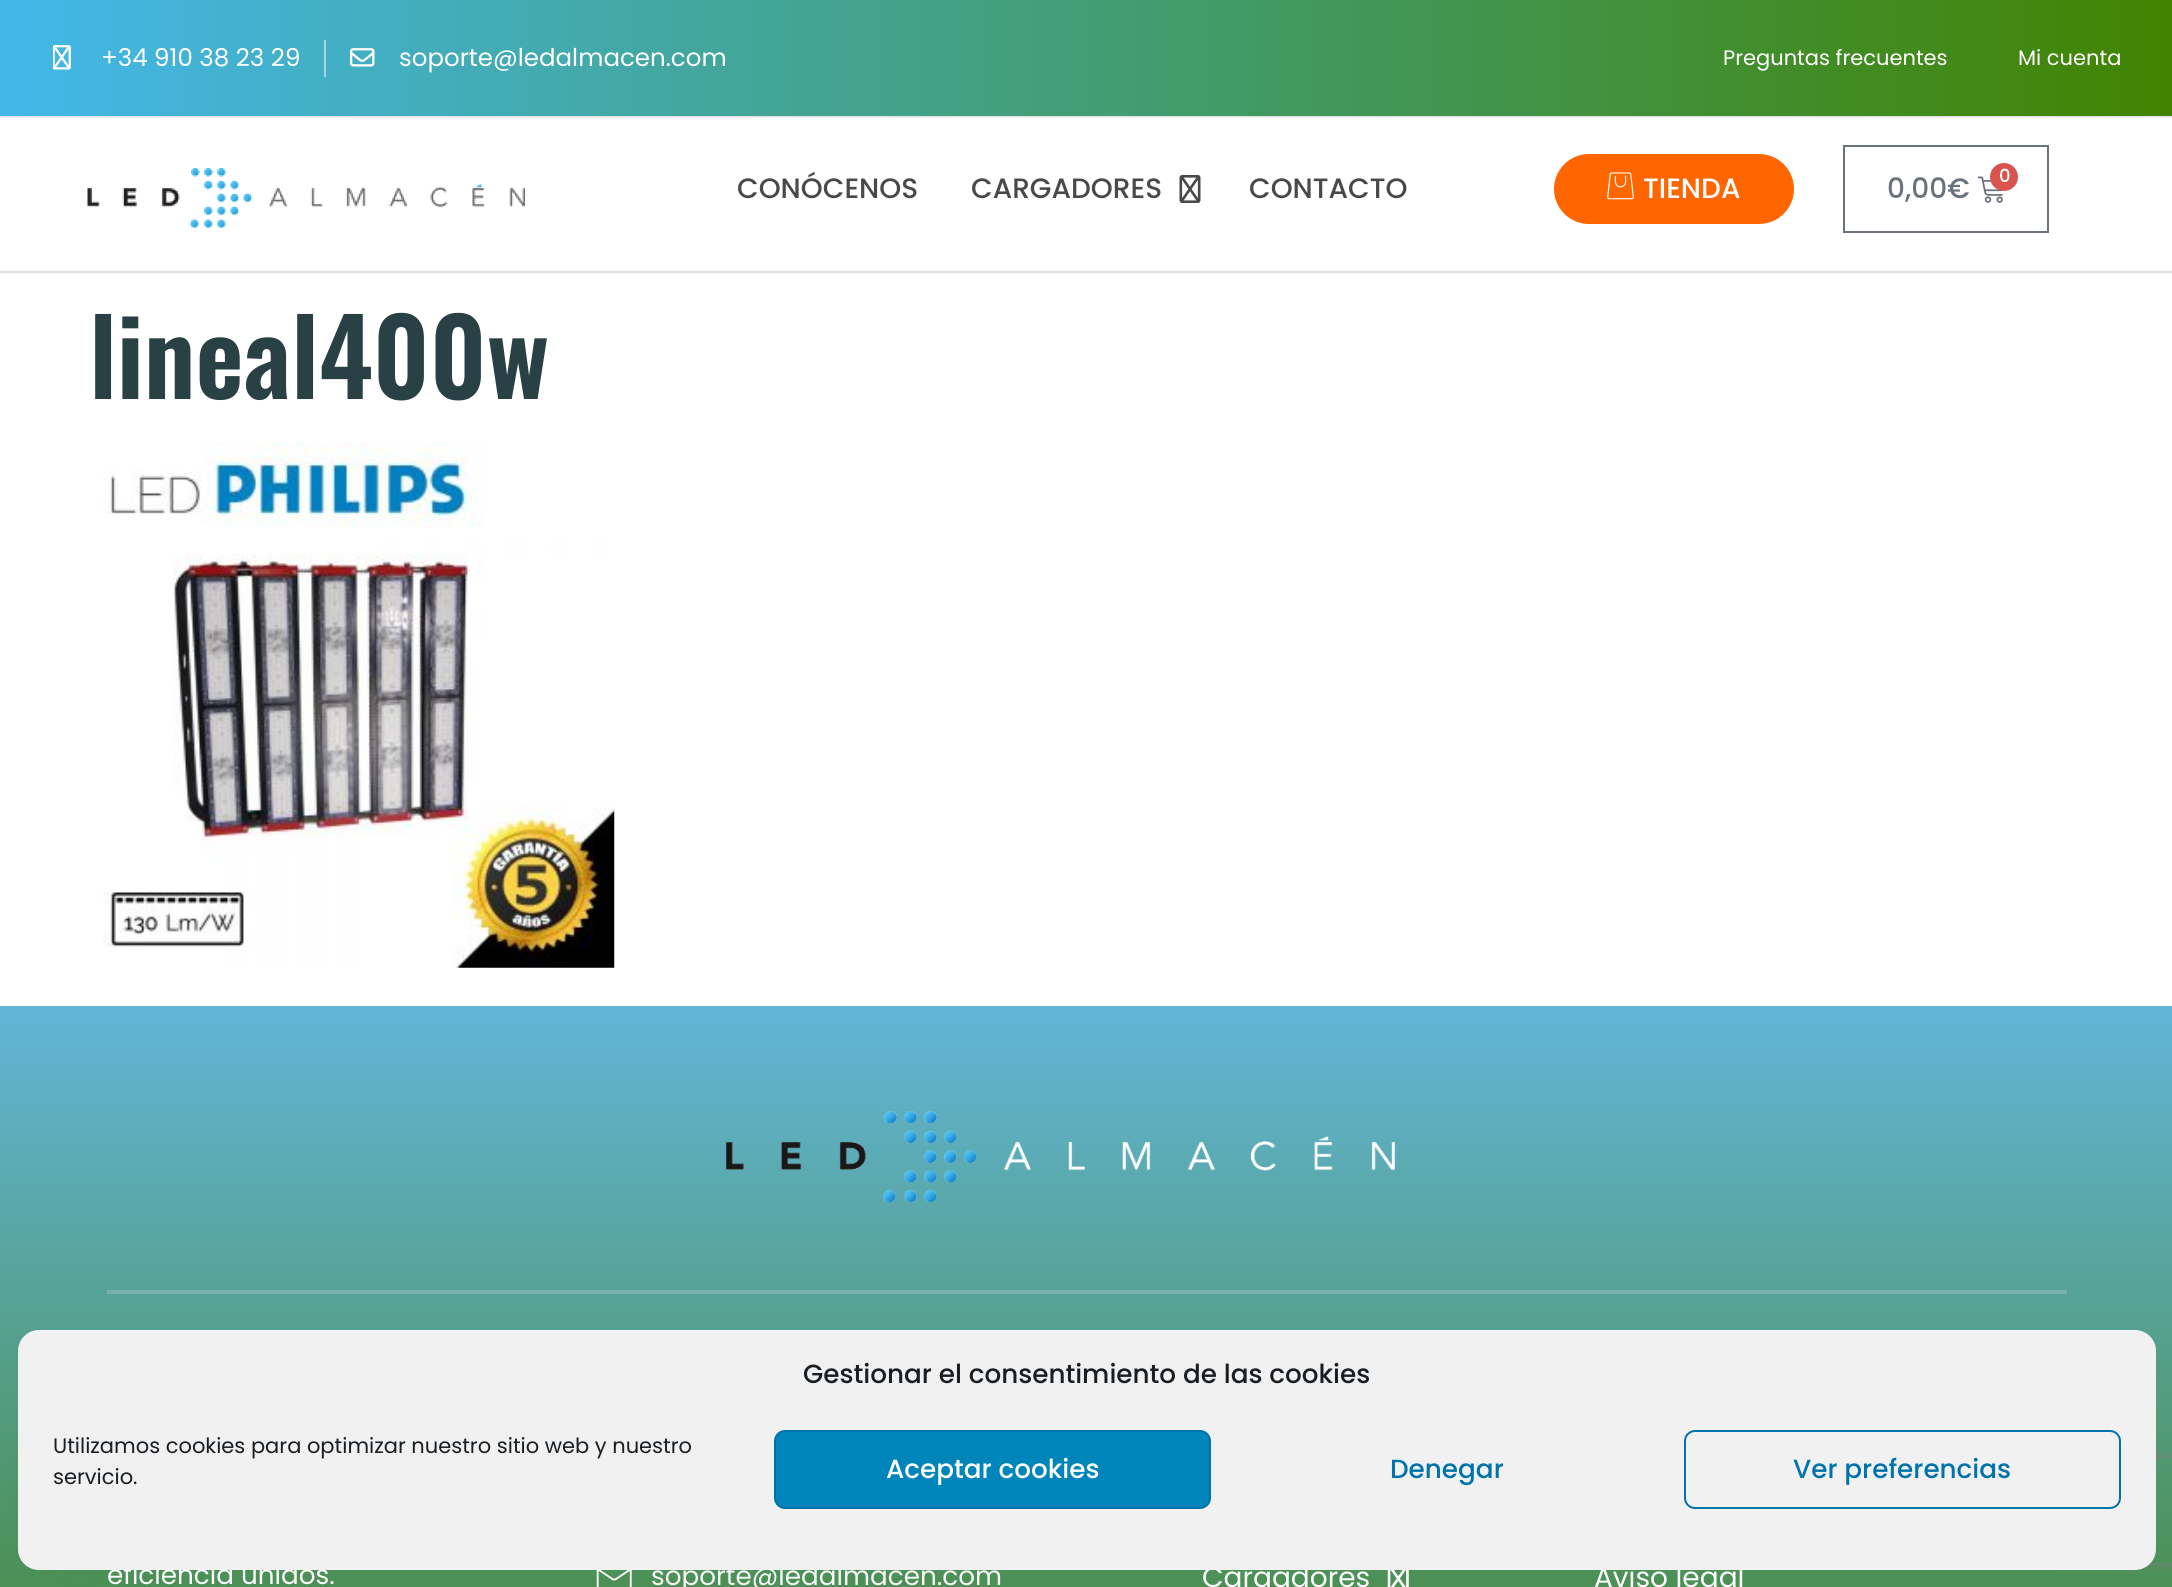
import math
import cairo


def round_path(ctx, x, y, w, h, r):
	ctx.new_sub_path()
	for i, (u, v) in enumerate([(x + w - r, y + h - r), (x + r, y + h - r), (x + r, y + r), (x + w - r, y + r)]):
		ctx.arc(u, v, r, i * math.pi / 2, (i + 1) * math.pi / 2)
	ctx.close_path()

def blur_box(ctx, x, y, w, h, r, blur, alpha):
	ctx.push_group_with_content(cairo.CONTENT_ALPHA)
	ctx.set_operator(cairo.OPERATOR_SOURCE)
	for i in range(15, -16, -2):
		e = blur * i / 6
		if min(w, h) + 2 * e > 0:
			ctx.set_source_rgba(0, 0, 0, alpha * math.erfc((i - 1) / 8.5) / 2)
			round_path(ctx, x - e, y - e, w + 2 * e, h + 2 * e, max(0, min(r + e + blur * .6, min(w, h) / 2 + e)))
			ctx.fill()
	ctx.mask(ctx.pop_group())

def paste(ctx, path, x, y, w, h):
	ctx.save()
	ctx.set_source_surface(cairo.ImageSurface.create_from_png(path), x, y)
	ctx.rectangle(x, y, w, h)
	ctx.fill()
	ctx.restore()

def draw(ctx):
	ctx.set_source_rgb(1, 1, 1)
	ctx.paint()
	gradient = cairo.LinearGradient(0, 58, 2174, 58)
	gradient.add_color_stop_rgba(0, 0.263, 0.718, 0.914, 1)
	gradient.add_color_stop_rgba(1, 0.259, 0.518, 0.004, 1)
	ctx.set_source(gradient)
	ctx.rectangle(0, 0, 2172, 116)
	ctx.fill()
	paste(ctx, 'media/1.png', 53, 45, 18, 25)
	ctx.select_font_face('Poppins')
	ctx.set_font_size(24.5)
	ctx.set_source_rgb(1, 1, 1)
	ctx.move_to(101, 66)
	ctx.show_text('+34 910 38 23 29')
	ctx.set_source_rgb(0.631, 0.843, 0.89)
	ctx.rectangle(324, 40, 2, 37)
	ctx.fill()
	paste(ctx, 'media/2.png', 350, 48, 25, 19)
	ctx.set_source_rgb(1, 1, 1)
	ctx.move_to(399, 66)
	ctx.show_text('soporte@ledalmacen.com')
	ctx.set_font_size(21)
	ctx.move_to(1723, 65)
	ctx.show_text('Preguntas frecuentes')
	ctx.move_to(2018, 65)
	ctx.show_text('Mi cuenta')
	ctx.set_source_rgb(0.875, 0.886, 0.89)
	ctx.rectangle(0, 116, 2172, 1)
	ctx.fill()
	ctx.set_source_rgb(0.937, 0.941, 0.945)
	ctx.rectangle(0, 117, 2172, 1)
	ctx.fill()
	ctx.set_source_rgb(0.875, 0.886, 0.89)
	ctx.rectangle(0, 271, 2172, 2)
	ctx.fill()
	paste(ctx, 'media/3.png', 87, 168, 438, 60)
	ctx.select_font_face('Poppins Medium')
	ctx.set_font_size(28)
	ctx.set_source_rgb(0.286, 0.286, 0.286)
	ctx.move_to(737, 198)
	ctx.show_text('CONÓCENOS')
	ctx.move_to(971, 198)
	ctx.show_text('CARGADORES')
	paste(ctx, 'media/4.png', 1179, 175, 22, 28)
	ctx.move_to(1249, 198)
	ctx.show_text('CONTACTO')
	ctx.set_source_rgb(1, 0.4, 0)
	round_path(ctx, 1554, 154, 240, 70, 35)
	ctx.fill()
	paste(ctx, 'media/5.png', 1607, 172, 27, 28)
	ctx.set_source_rgb(1, 1, 1)
	ctx.move_to(1643, 198)
	ctx.show_text('TIENDA')
	ctx.rectangle(1844, 146, 204, 86)
	ctx.set_source_rgb(0.412, 0.447, 0.49)
	ctx.stroke()
	paste(ctx, 'media/6.png', 1977, 176, 27, 27)
	ctx.set_source_rgb(0.851, 0.325, 0.31)
	ctx.arc(2004, 177, 14, 0, 2 * math.pi)
	ctx.fill()
	ctx.set_font_size(18)
	ctx.set_source_rgb(1, 1, 1)
	ctx.move_to(1999, 182)
	ctx.show_text('0')
	ctx.set_font_size(28)
	ctx.set_source_rgb(0.412, 0.447, 0.49)
	ctx.move_to(1887, 198)
	ctx.show_text('0,00€')
	ctx.select_font_face('Oswald SemiBold')
	ctx.set_font_size(105)
	ctx.set_source_rgb(0.161, 0.255, 0.271)
	ctx.move_to(89, 399)
	ctx.show_text('lineal400w')
	paste(ctx, 'media/7.png', 103, 442, 512, 526)
	gradient = cairo.LinearGradient(1087, 1006, 1087, 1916)
	gradient.add_color_stop_rgba(0, 0.384, 0.71, 0.847, 1)
	gradient.add_color_stop_rgba(1, 0.247, 0.482, 0.039, 1)
	ctx.set_source(gradient)
	ctx.rectangle(0, 1006, 2172, 581)
	ctx.fill()
	ctx.set_source_rgb(0.027, 0.369, 0.329)
	blur_box(ctx, 51, 1444, 105, 105, 52.5, 21, 0.24)
	ctx.save()
	ctx.set_fill_rule(cairo.FILL_RULE_EVEN_ODD)
	ctx.new_path()
	ctx.move_to(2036, 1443)
	ctx.line_to(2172, 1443)
	ctx.line_to(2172, 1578)
	ctx.line_to(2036, 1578)
	ctx.close_path()
	ctx.move_to(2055, 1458)
	ctx.line_to(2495, 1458)
	ctx.curve_to(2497, 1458, 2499, 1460, 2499, 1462)
	ctx.line_to(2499, 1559)
	ctx.curve_to(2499, 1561, 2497, 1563, 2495, 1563)
	ctx.line_to(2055, 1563)
	ctx.curve_to(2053, 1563, 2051, 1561, 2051, 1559)
	ctx.line_to(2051, 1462)
	ctx.curve_to(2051, 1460, 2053, 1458, 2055, 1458)
	ctx.close_path()
	ctx.clip()
	ctx.set_source_rgb(0.502, 0.502, 0.502)
	blur_box(ctx, 2051, 1458, 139, 105, 4, 4.5, 1)
	ctx.restore()
	ctx.select_font_face('Poppins')
	ctx.set_font_size(26.25)
	ctx.set_source_rgb(1, 1, 1)
	ctx.move_to(107, 1584)
	ctx.show_text('eficiencia unidos.')
	ctx.set_source_rgb(0.976, 0.976, 0.976)
	ctx.move_to(651, 1585)
	ctx.show_text('soporte@ledalmacen.com')
	ctx.set_font_size(28)
	ctx.set_source_rgb(1, 1, 1)
	ctx.move_to(1202, 1587)
	ctx.show_text('Cargadores')
	ctx.move_to(1594, 1587)
	ctx.show_text('Aviso legal')
	ctx.set_source_rgb(0.945, 0.945, 0.945)
	round_path(ctx, 18, 1330, 2138, 240, 21)
	ctx.fill()
	ctx.select_font_face('Poppins Medium')
	ctx.set_font_size(26.25)
	ctx.set_source_rgb(0.098, 0.118, 0.137)
	ctx.move_to(803, 1383)
	ctx.show_text('Gestionar el consentimiento de las cookies')
	ctx.select_font_face('Poppins')
	ctx.set_font_size(21)
	ctx.move_to(53, 1453)
	ctx.show_text('Utilizamos cookies para optimizar nuestro sitio web y nuestro')
	ctx.move_to(53, 1484)
	ctx.show_text('servicio.')
	ctx.set_source_rgb(0, 0.522, 0.729)
	round_path(ctx, 775, 1431, 435, 77, 10)
	ctx.fill_preserve()
	ctx.set_source_rgb(0, 0.451, 0.667)
	ctx.stroke()
	ctx.select_font_face('Poppins Medium')
	ctx.set_font_size(26.25)
	ctx.set_source_rgb(1, 1, 1)
	ctx.move_to(886, 1478)
	ctx.show_text('Aceptar cookies')
	ctx.set_source_rgb(0, 0.451, 0.667)
	ctx.move_to(1390, 1478)
	ctx.show_text('Denegar')
	round_path(ctx, 1685, 1431, 435, 77, 10)
	ctx.stroke()
	ctx.move_to(1793, 1478)
	ctx.show_text('Ver preferencias')
	paste(ctx, 'media/8.png', 726, 1111, 669, 92)
	ctx.set_source_rgb(0.463, 0.698, 0.663)
	ctx.rectangle(107, 1290, 1960, 4)
	ctx.fill()
	paste(ctx, 'media/9.png', 596, 1570, 36, 17)
	paste(ctx, 'media/10.png', 1387, 1570, 22, 17)


surface = cairo.ImageSurface(cairo.FORMAT_RGB24, 2172, 1587)
ctx = cairo.Context(surface)
options = cairo.FontOptions()
options.set_hint_metrics(cairo.HINT_METRICS_OFF)
options.set_hint_style(cairo.HINT_STYLE_NONE)
ctx.set_font_options(options)
ctx.set_miter_limit(4)
draw(ctx)
surface.write_to_png('image.png')
